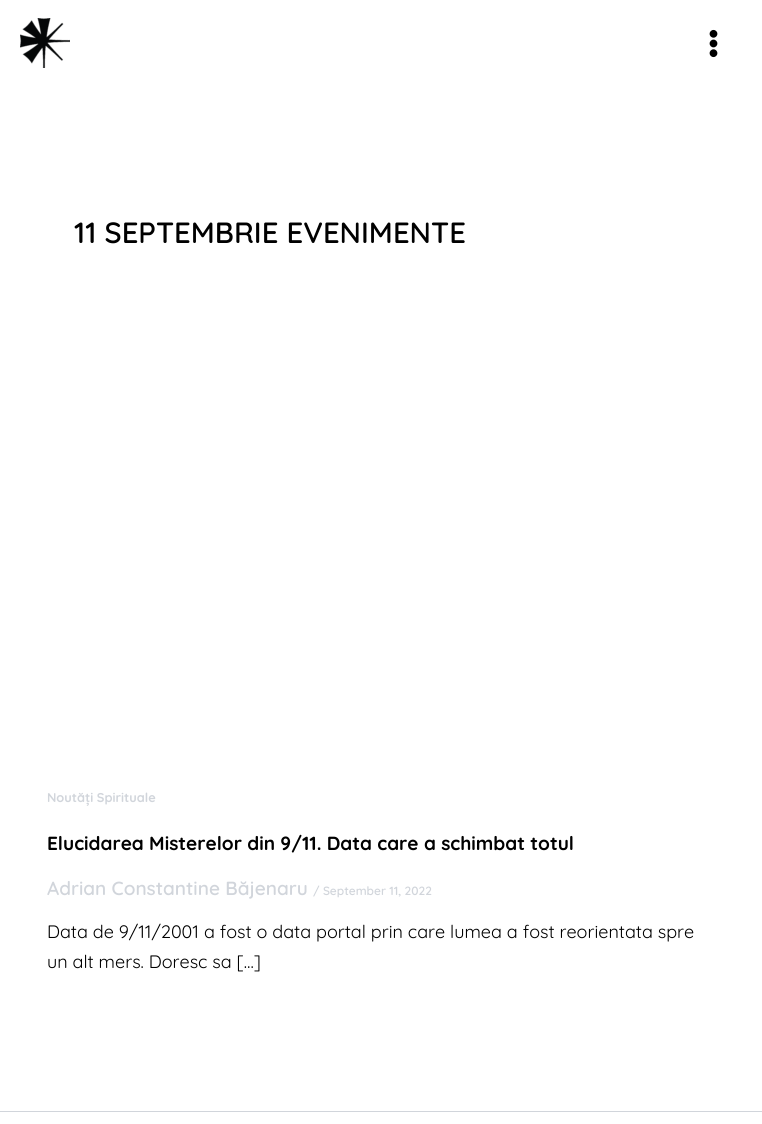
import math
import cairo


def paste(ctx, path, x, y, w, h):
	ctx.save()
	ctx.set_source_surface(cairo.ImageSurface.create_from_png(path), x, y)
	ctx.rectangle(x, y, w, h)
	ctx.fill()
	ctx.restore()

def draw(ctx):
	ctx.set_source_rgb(1, 1, 1)
	ctx.paint()
	paste(ctx, 'media/1.png', 20, 18, 50, 50)
	paste(ctx, 'media/2.png', 709, 29, 9, 29)
	ctx.select_font_face('Quicksand SemiBold')
	ctx.set_font_size(29.25)
	ctx.set_source_rgb(0, 0, 0)
	ctx.move_to(74, 243)
	ctx.show_text('11 SEPTEMBRIE EVENIMENTE')
	ctx.select_font_face('Quicksand', cairo.FONT_SLANT_NORMAL, cairo.FONT_WEIGHT_BOLD)
	ctx.set_font_size(12.75)
	ctx.set_source_rgb(0.82, 0.835, 0.859)
	ctx.move_to(47, 802)
	ctx.show_text('Noutăți Spirituale')
	ctx.set_font_size(19)
	ctx.set_source_rgb(0, 0, 0)
	ctx.move_to(47, 850)
	ctx.show_text('Elucidarea Misterelor din 9/11. Data care a schimbat totul')
	ctx.select_font_face('Quicksand SemiBold')
	ctx.set_source_rgb(0.82, 0.835, 0.859)
	ctx.move_to(47, 895)
	ctx.show_text('Adrian Constantine Băjenaru')
	ctx.set_font_size(11.9)
	ctx.move_to(313, 895)
	ctx.show_text('/ September 11, 2022')
	ctx.select_font_face('Quicksand')
	ctx.set_font_size(18)
	ctx.set_source_rgb(0, 0, 0)
	ctx.move_to(47, 938)
	ctx.show_text('Data de 9/11/2001 a fost o data portal prin care lumea a fost reorientata spre')
	ctx.move_to(47, 968)
	ctx.show_text('un alt mers. Doresc sa […]')
	ctx.set_source_rgb(0.82, 0.835, 0.859)
	ctx.rectangle(0, 1111, 762, 1)
	ctx.fill()


surface = cairo.ImageSurface(cairo.FORMAT_RGB24, 762, 1124)
ctx = cairo.Context(surface)
options = cairo.FontOptions()
options.set_hint_metrics(cairo.HINT_METRICS_OFF)
options.set_hint_style(cairo.HINT_STYLE_NONE)
ctx.set_font_options(options)
ctx.set_miter_limit(4)
draw(ctx)
surface.write_to_png('image.png')
